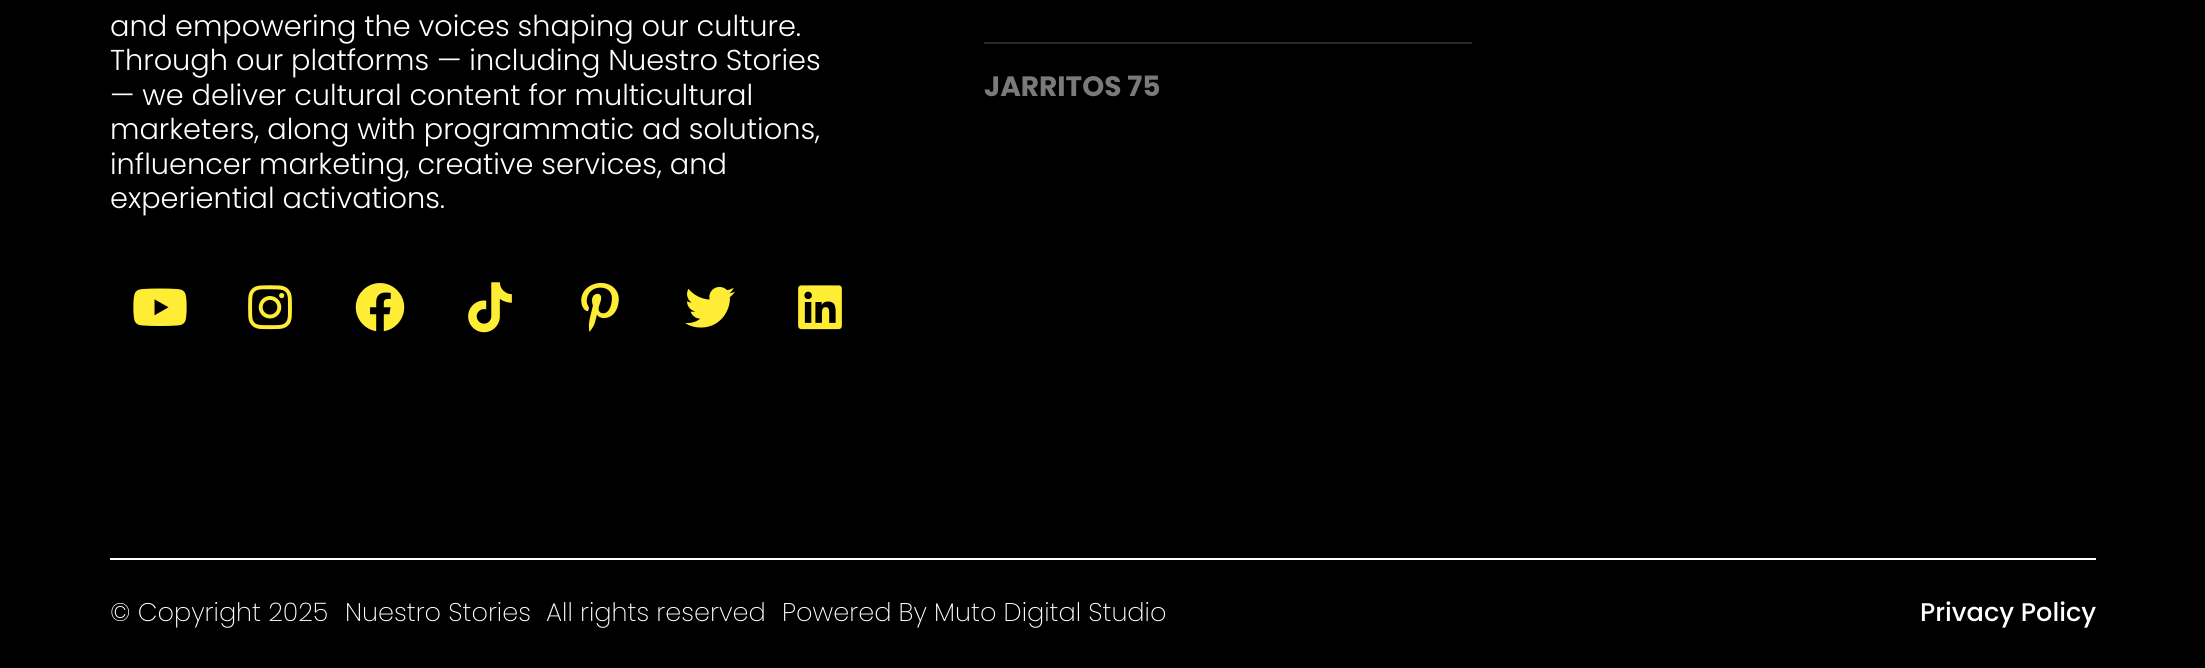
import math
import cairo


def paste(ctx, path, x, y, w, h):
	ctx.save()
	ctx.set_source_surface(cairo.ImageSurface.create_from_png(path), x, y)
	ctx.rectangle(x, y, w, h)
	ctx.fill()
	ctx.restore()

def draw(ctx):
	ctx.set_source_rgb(0, 0, 0)
	ctx.paint()
	ctx.select_font_face('Poppins Light')
	ctx.set_font_size(28.8)
	ctx.set_source_rgb(1, 1, 1)
	for x, y, s in [
		(110, 36, 'and empowering the voices shaping our culture.'),
		(110, 70, 'Through our platforms — including Nuestro Stories'),
		(110, 105, '— we deliver cultural content for multicultural'),
		(110, 139, 'marketers, along with programmatic ad solutions,'),
		(110, 174, 'influencer marketing, creative services, and'),
		(110, 208, 'experiential activations.'),
	]:
		ctx.move_to(x, y)
		ctx.show_text(s)
	paste(ctx, 'media/1.png', 133, 288, 54, 38)
	paste(ctx, 'media/2.png', 248, 285, 44, 45)
	paste(ctx, 'media/3.png', 355, 283, 50, 49)
	paste(ctx, 'media/4.png', 468, 282, 44, 51)
	paste(ctx, 'media/5.png', 581, 282, 38, 50)
	paste(ctx, 'media/6.png', 685, 286, 50, 42)
	paste(ctx, 'media/7.png', 798, 285, 44, 45)
	ctx.set_source_rgb(0.157, 0.157, 0.157)
	ctx.rectangle(984, 42, 488, 2)
	ctx.fill()
	ctx.select_font_face('Poppins', cairo.FONT_SLANT_NORMAL, cairo.FONT_WEIGHT_BOLD)
	ctx.set_font_size(28)
	ctx.set_source_rgb(0.478, 0.478, 0.478)
	ctx.move_to(984, 96)
	ctx.show_text('JARRITOS 75')
	ctx.set_source_rgb(1, 1, 1)
	ctx.rectangle(110, 558, 1986, 2)
	ctx.fill()
	ctx.select_font_face('Poppins ExtraLight')
	ctx.set_font_size(25.6)
	for x, y, s in [
		(110, 621, '© Copyright 2025'),
		(345, 621, 'Nuestro Stories'),
		(546, 621, 'All rights reserved'),
		(782, 621, 'Powered By Muto Digital Studio'),
	]:
		ctx.move_to(x, y)
		ctx.show_text(s)
	ctx.select_font_face('Poppins Medium')
	ctx.move_to(1920, 621)
	ctx.show_text('Privacy Policy')


surface = cairo.ImageSurface(cairo.FORMAT_RGB24, 2205, 668)
ctx = cairo.Context(surface)
options = cairo.FontOptions()
options.set_hint_metrics(cairo.HINT_METRICS_OFF)
options.set_hint_style(cairo.HINT_STYLE_NONE)
ctx.set_font_options(options)
ctx.set_miter_limit(4)
draw(ctx)
surface.write_to_png('image.png')
